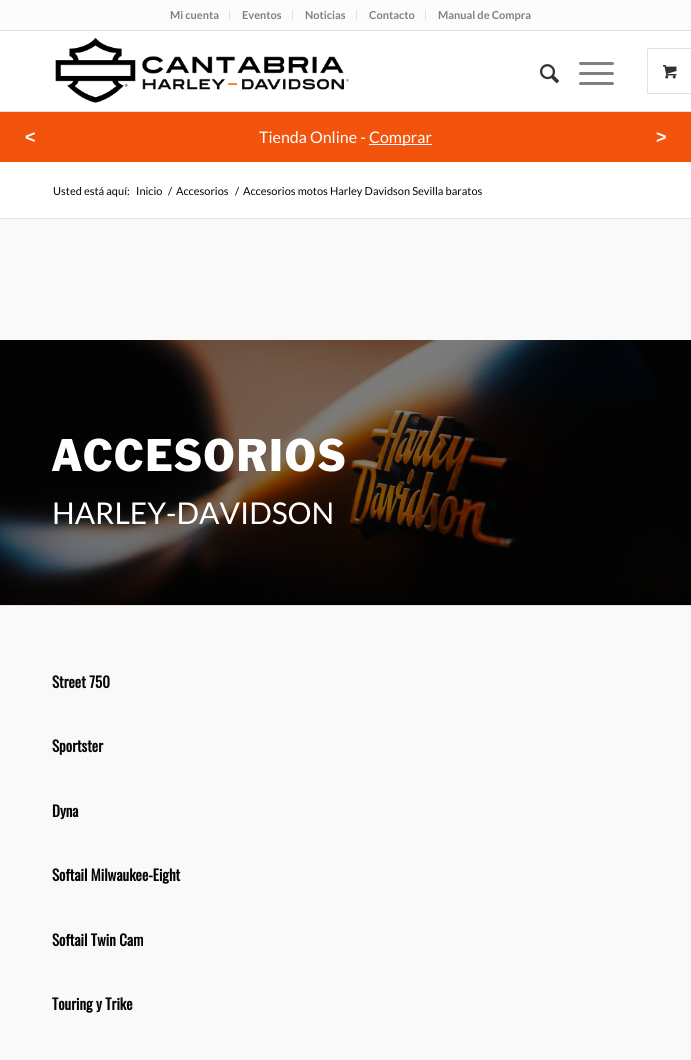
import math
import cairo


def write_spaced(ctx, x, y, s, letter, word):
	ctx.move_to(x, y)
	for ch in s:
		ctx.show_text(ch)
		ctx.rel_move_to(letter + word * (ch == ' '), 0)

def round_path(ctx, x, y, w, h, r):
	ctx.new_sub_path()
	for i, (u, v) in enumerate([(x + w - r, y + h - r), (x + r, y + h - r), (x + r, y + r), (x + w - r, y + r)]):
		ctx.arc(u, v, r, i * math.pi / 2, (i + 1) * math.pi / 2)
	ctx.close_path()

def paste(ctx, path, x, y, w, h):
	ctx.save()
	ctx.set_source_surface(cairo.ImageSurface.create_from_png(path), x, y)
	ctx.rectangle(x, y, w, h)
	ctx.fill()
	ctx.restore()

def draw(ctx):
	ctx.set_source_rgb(1, 1, 1)
	ctx.paint()
	ctx.set_source_rgb(0.988, 0.988, 0.988)
	ctx.rectangle(0, 0, 691, 30)
	ctx.fill()
	ctx.set_source_rgb(0.882, 0.882, 0.882)
	ctx.rectangle(0, 30, 691, 1)
	ctx.rectangle(229, 10, 1, 10)
	ctx.fill()
	ctx.select_font_face('Lato', cairo.FONT_SLANT_NORMAL, cairo.FONT_WEIGHT_BOLD)
	ctx.set_font_size(11)
	ctx.set_source_rgb(0.502, 0.502, 0.502)
	ctx.move_to(170, 19)
	ctx.show_text('Mi cuenta')
	ctx.set_source_rgb(0.882, 0.882, 0.882)
	ctx.rectangle(292, 10, 1, 10)
	ctx.fill()
	ctx.set_source_rgb(0.502, 0.502, 0.502)
	ctx.move_to(242, 19)
	ctx.show_text('Eventos')
	ctx.set_source_rgb(0.882, 0.882, 0.882)
	ctx.rectangle(356, 10, 1, 10)
	ctx.fill()
	ctx.set_source_rgb(0.502, 0.502, 0.502)
	ctx.move_to(305, 19)
	ctx.show_text('Noticias')
	ctx.set_source_rgb(0.882, 0.882, 0.882)
	ctx.rectangle(425, 10, 1, 10)
	ctx.fill()
	ctx.set_source_rgb(0.502, 0.502, 0.502)
	ctx.move_to(369, 19)
	ctx.show_text('Contacto')
	ctx.move_to(438, 19)
	ctx.show_text('Manual de Compra')
	ctx.set_source_rgb(0.882, 0.882, 0.882)
	ctx.rectangle(0, 111, 691, 1)
	ctx.fill()
	paste(ctx, 'media/1.png', 55, 37, 294, 66)
	paste(ctx, 'media/2.png', 540, 64, 19, 20)
	ctx.set_source_rgb(0.502, 0.502, 0.502)
	round_path(ctx, 579, 72, 35, 3, 1.5)
	ctx.fill()
	round_path(ctx, 579, 62, 35, 3, 1.5)
	ctx.fill()
	round_path(ctx, 579, 82, 35, 3, 1.5)
	ctx.fill()
	round_path(ctx, 647.5, 48.5, 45, 45, 1.5)
	ctx.set_source_rgb(0.882, 0.882, 0.882)
	ctx.set_line_width(1)
	ctx.stroke()
	ctx.set_source_rgb(1, 1, 1)
	ctx.rectangle(648, 49, 1, 44)
	ctx.fill()
	paste(ctx, 'media/3.png', 663, 65, 14, 14)
	ctx.set_source_rgb(0.949, 0.329, 0.051)
	ctx.rectangle(0, 112, 691, 50)
	ctx.fill()
	ctx.select_font_face('Liberation Sans', cairo.FONT_SLANT_NORMAL, cairo.FONT_WEIGHT_BOLD)
	ctx.set_font_size(18)
	ctx.set_source_rgb(1, 1, 1)
	ctx.move_to(25, 143)
	ctx.show_text('<')
	ctx.select_font_face('Lato')
	ctx.set_font_size(16)
	ctx.move_to(259, 143)
	ctx.show_text('Tienda Online -')
	ctx.rectangle(369, 144, 63, 1)
	ctx.fill()
	ctx.move_to(369, 143)
	ctx.show_text('Comprar')
	ctx.select_font_face('Liberation Sans', cairo.FONT_SLANT_NORMAL, cairo.FONT_WEIGHT_BOLD)
	ctx.set_font_size(18)
	ctx.move_to(656, 143)
	ctx.show_text('>')
	ctx.select_font_face('Lato')
	ctx.set_font_size(11)
	ctx.set_source_rgb(0.02, 0.02, 0.02)
	for x, y, s in [
		(53, 195, 'Usted está aquí:'),
		(136, 195, 'Inicio'),
		(168, 195, '/'),
		(176, 195, 'Accesorios'),
		(235, 195, '/'),
		(243, 195, 'Accesorios motos Harley Davidson Sevilla baratos'),
	]:
		ctx.move_to(x, y)
		ctx.show_text(s)
	ctx.set_source_rgb(0.973, 0.973, 0.973)
	ctx.rectangle(0, 219, 691, 121)
	ctx.fill()
	ctx.set_source_rgb(0.882, 0.882, 0.882)
	ctx.rectangle(0, 218, 691, 1)
	ctx.fill()
	paste(ctx, 'media/4.png', 0, 340, 691, 265)
	ctx.select_font_face('Franklin Gothic')
	ctx.set_font_size(48)
	ctx.set_source_rgb(1, 1, 1)
	write_spaced(ctx, 52, 471, 'ACCESORIOS', 1, 0)
	ctx.select_font_face('Lato')
	ctx.set_font_size(30)
	ctx.move_to(52, 524)
	ctx.show_text('HARLEY-DAVIDSON')
	ctx.set_source_rgb(0.973, 0.973, 0.973)
	ctx.rectangle(0, 606, 691, 454)
	ctx.fill()
	ctx.set_source_rgb(0.882, 0.882, 0.882)
	ctx.rectangle(0, 605, 691, 1)
	ctx.fill()
	ctx.select_font_face('Oswald', cairo.FONT_SLANT_NORMAL, cairo.FONT_WEIGHT_BOLD)
	ctx.set_font_size(15)
	ctx.set_source_rgb(0.02, 0.02, 0.02)
	for x, y, s in [
		(52, 688, 'Street 750'),
		(52, 752, 'Sportster'),
		(52, 817, 'Dyna'),
		(52, 881, 'Softail Milwaukee-Eight'),
		(52, 946, 'Softail Twin Cam'),
		(52, 1010, 'Touring y Trike'),
	]:
		ctx.move_to(x, y)
		ctx.show_text(s)


surface = cairo.ImageSurface(cairo.FORMAT_RGB24, 691, 1060)
ctx = cairo.Context(surface)
options = cairo.FontOptions()
options.set_hint_metrics(cairo.HINT_METRICS_OFF)
options.set_hint_style(cairo.HINT_STYLE_NONE)
ctx.set_font_options(options)
ctx.set_miter_limit(4)
draw(ctx)
surface.write_to_png('image.png')
